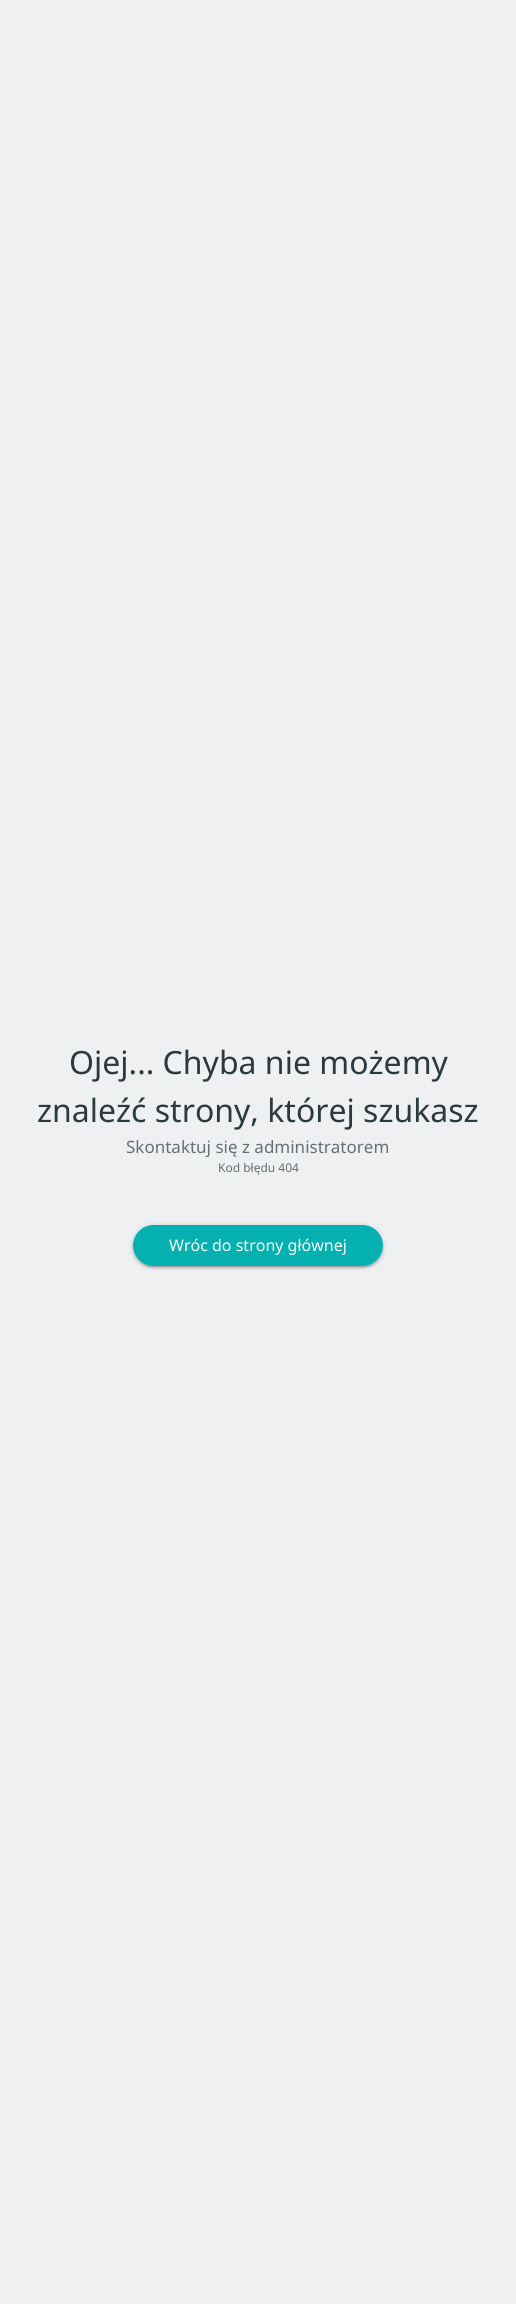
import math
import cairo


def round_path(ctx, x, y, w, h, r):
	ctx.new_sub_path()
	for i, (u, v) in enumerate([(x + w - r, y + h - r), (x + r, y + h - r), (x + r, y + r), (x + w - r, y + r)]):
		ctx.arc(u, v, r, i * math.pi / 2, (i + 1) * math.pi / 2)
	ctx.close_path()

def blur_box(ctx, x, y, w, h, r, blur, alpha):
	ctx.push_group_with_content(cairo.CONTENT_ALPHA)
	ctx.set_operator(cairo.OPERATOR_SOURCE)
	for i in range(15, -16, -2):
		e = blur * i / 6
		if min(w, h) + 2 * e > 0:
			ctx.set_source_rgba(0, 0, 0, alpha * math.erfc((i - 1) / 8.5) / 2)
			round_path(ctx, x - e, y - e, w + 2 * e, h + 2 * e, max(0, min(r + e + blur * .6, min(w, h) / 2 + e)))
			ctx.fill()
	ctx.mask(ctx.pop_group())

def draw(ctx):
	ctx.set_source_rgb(0.933, 0.941, 0.945)
	ctx.paint()
	ctx.select_font_face('Noto Sans')
	ctx.set_font_size(32)
	ctx.set_source_rgb(0.173, 0.224, 0.247)
	ctx.move_to(69, 1074)
	ctx.show_text('Ojej... Chyba nie możemy')
	ctx.move_to(37, 1122)
	ctx.show_text('znaleźć strony, której szukasz')
	ctx.set_font_size(17)
	ctx.set_source_rgb(0.4, 0.439, 0.455)
	ctx.move_to(126, 1153)
	ctx.show_text('Skontaktuj się z administratorem')
	ctx.set_font_size(12)
	ctx.move_to(218, 1172)
	ctx.show_text('Kod błędu 404')
	ctx.set_source_rgb(0.02, 0.69, 0.69)
	round_path(ctx, 133, 1225, 250, 41, 20.5)
	ctx.fill()
	ctx.save()
	ctx.set_fill_rule(cairo.FILL_RULE_EVEN_ODD)
	ctx.new_path()
	ctx.move_to(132, 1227)
	ctx.line_to(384, 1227)
	ctx.line_to(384, 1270)
	ctx.line_to(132, 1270)
	ctx.close_path()
	ctx.move_to(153.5, 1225)
	ctx.line_to(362.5, 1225)
	ctx.curve_to(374, 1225, 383, 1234, 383, 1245.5)
	ctx.curve_to(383, 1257, 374, 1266, 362.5, 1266)
	ctx.line_to(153.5, 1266)
	ctx.curve_to(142, 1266, 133, 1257, 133, 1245.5)
	ctx.curve_to(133, 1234, 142, 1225, 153.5, 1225)
	ctx.close_path()
	ctx.clip()
	ctx.set_source_rgb(0, 0, 0)
	blur_box(ctx, 135, 1230, 246, 37, 18.5, 0.5, 0.12)
	ctx.restore()
	ctx.save()
	ctx.set_fill_rule(cairo.FILL_RULE_EVEN_ODD)
	ctx.new_path()
	ctx.move_to(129, 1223)
	ctx.line_to(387, 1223)
	ctx.line_to(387, 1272)
	ctx.line_to(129, 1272)
	ctx.close_path()
	ctx.move_to(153.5, 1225)
	ctx.line_to(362.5, 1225)
	ctx.curve_to(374, 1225, 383, 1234, 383, 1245.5)
	ctx.curve_to(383, 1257, 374, 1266, 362.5, 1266)
	ctx.line_to(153.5, 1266)
	ctx.curve_to(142, 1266, 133, 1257, 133, 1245.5)
	ctx.curve_to(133, 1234, 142, 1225, 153.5, 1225)
	ctx.close_path()
	ctx.clip()
	ctx.set_source_rgb(0, 0, 0)
	blur_box(ctx, 133, 1227, 250, 41, 20.5, 1, 0.14)
	ctx.restore()
	ctx.save()
	ctx.set_fill_rule(cairo.FILL_RULE_EVEN_ODD)
	ctx.new_path()
	ctx.move_to(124, 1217)
	ctx.line_to(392, 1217)
	ctx.line_to(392, 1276)
	ctx.line_to(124, 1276)
	ctx.close_path()
	ctx.move_to(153.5, 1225)
	ctx.line_to(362.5, 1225)
	ctx.curve_to(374, 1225, 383, 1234, 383, 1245.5)
	ctx.curve_to(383, 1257, 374, 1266, 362.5, 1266)
	ctx.line_to(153.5, 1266)
	ctx.curve_to(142, 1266, 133, 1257, 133, 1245.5)
	ctx.curve_to(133, 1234, 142, 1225, 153.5, 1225)
	ctx.close_path()
	ctx.clip()
	ctx.set_source_rgb(0, 0, 0)
	blur_box(ctx, 133, 1226, 250, 41, 20.5, 2.5, 0.2)
	ctx.restore()
	ctx.set_font_size(16)
	ctx.set_source_rgb(1, 1, 1)
	ctx.move_to(169, 1251)
	ctx.show_text('Wróc do strony głównej')


surface = cairo.ImageSurface(cairo.FORMAT_RGB24, 516, 2304)
ctx = cairo.Context(surface)
options = cairo.FontOptions()
options.set_hint_metrics(cairo.HINT_METRICS_OFF)
options.set_hint_style(cairo.HINT_STYLE_NONE)
ctx.set_font_options(options)
ctx.set_miter_limit(4)
draw(ctx)
surface.write_to_png('image.png')
